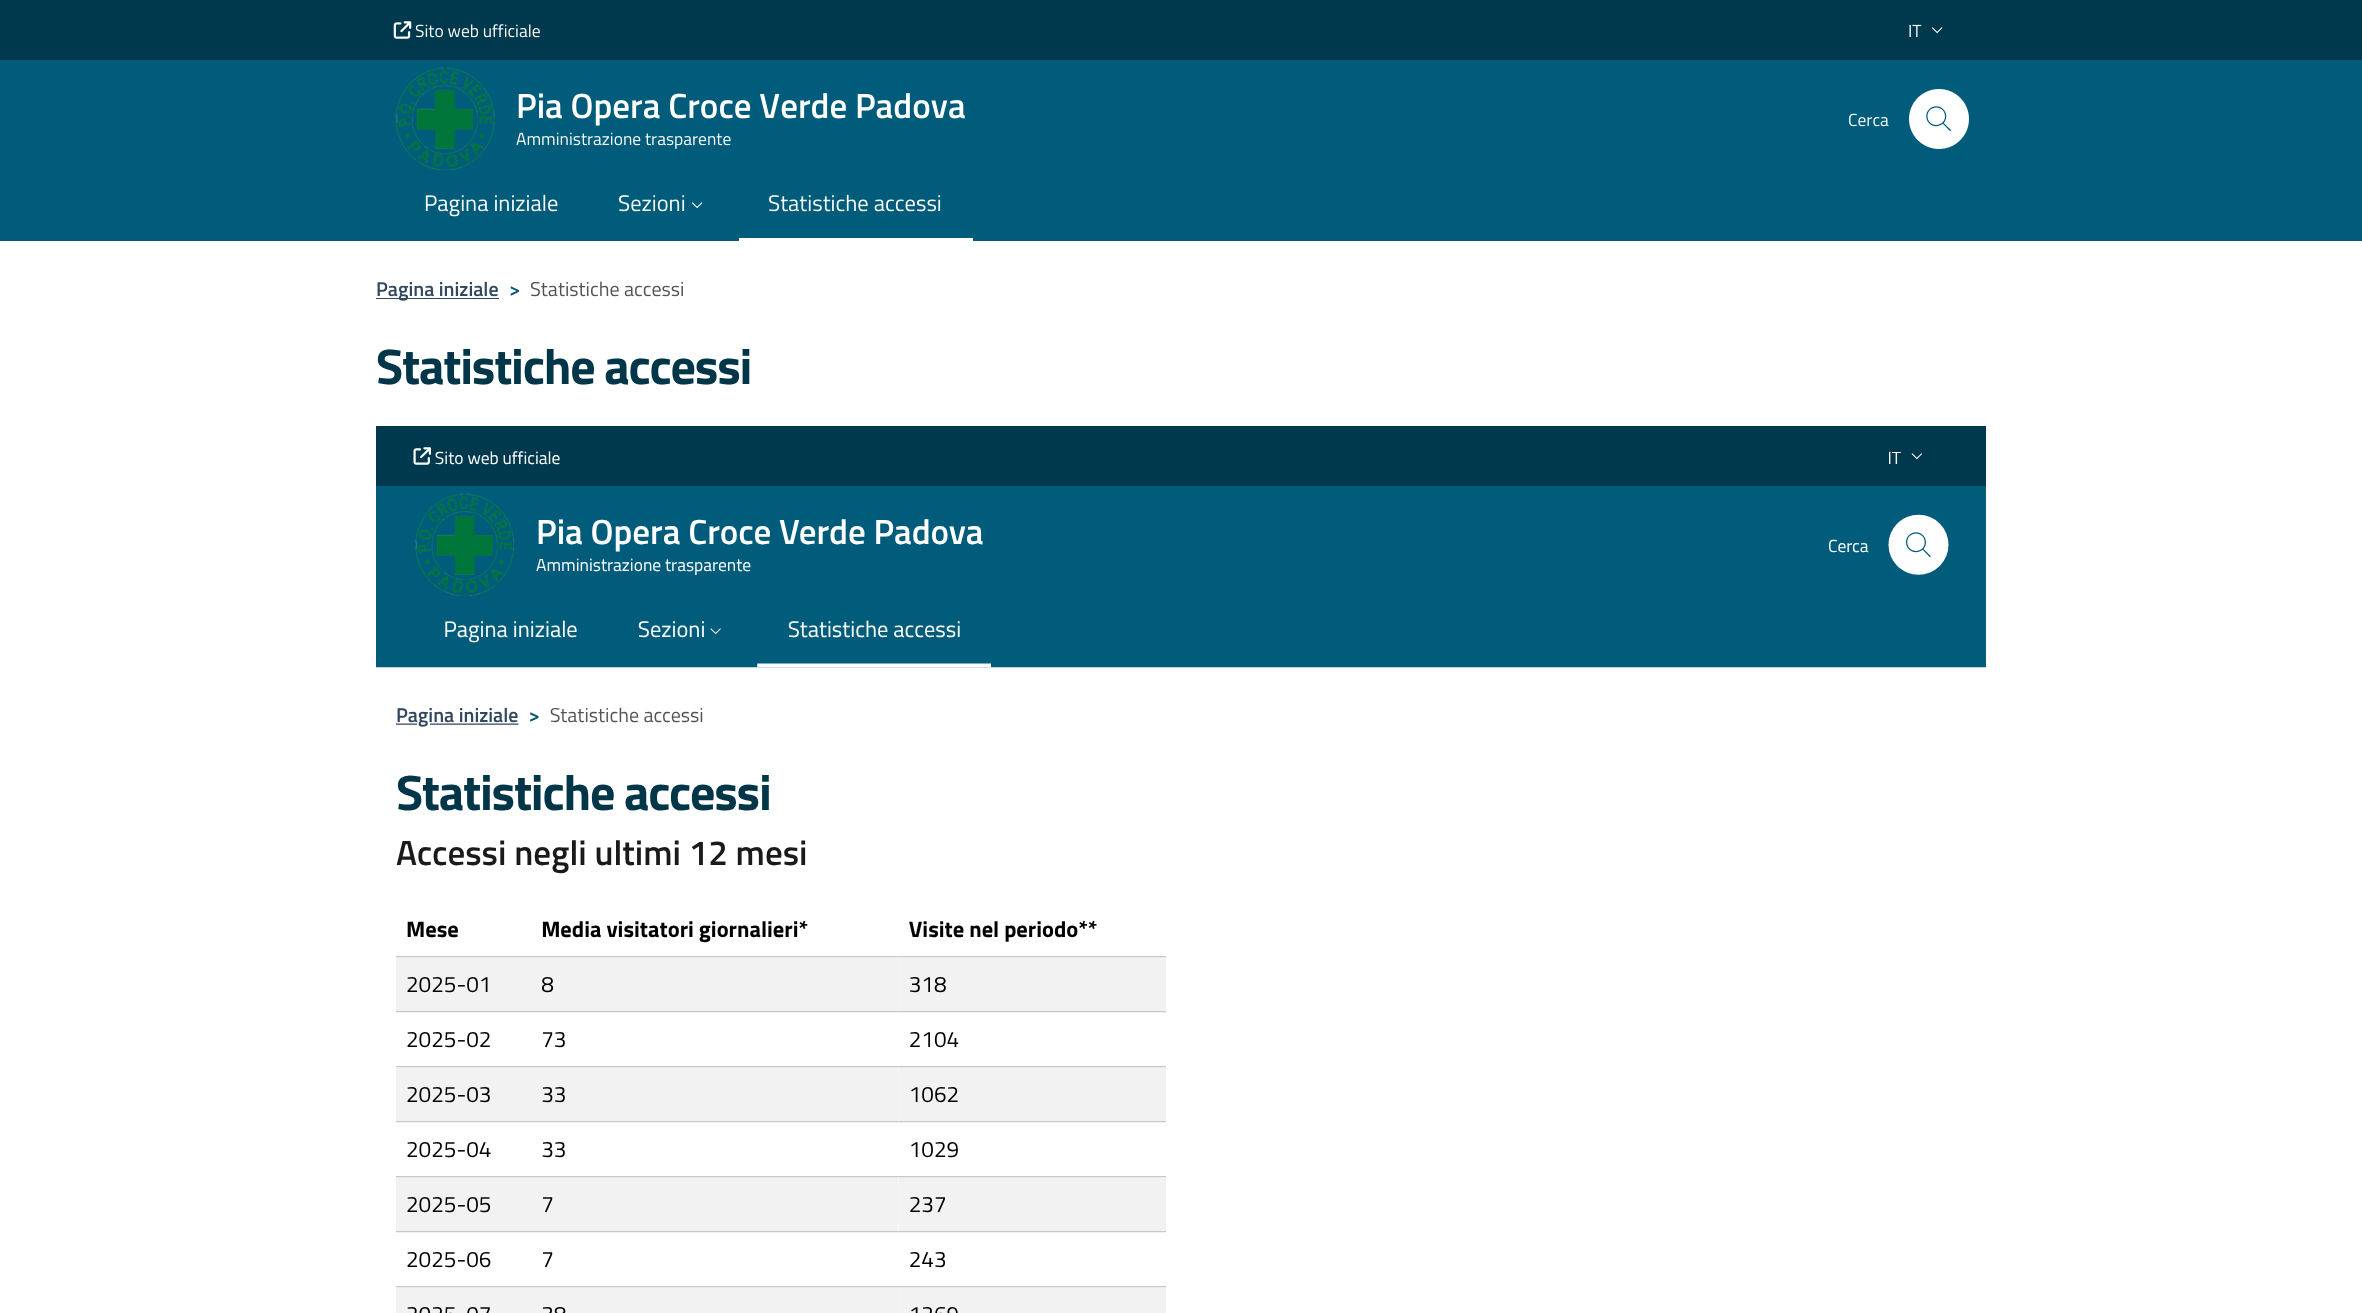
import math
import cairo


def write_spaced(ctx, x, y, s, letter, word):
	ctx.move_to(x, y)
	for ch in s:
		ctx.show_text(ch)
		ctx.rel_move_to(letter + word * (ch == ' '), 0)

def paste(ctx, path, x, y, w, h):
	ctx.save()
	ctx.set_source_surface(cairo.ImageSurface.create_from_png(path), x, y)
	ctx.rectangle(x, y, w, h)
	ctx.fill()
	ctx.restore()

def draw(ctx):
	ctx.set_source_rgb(1, 1, 1)
	ctx.paint()
	ctx.set_source_rgb(0, 0.224, 0.302)
	ctx.rectangle(0, 0, 2362, 60)
	ctx.fill()
	paste(ctx, 'media/1.png', 393, 21, 19, 18)
	ctx.select_font_face('Titillium Web')
	ctx.set_font_size(17.5)
	ctx.set_source_rgb(1, 1, 1)
	ctx.move_to(415, 37)
	ctx.show_text('Sito web ufficiale')
	ctx.move_to(1908, 37)
	ctx.show_text('IT')
	paste(ctx, 'media/2.png', 1932, 27, 11, 7)
	ctx.set_source_rgb(0, 0.361, 0.478)
	ctx.rectangle(0, 60, 2362, 181)
	ctx.fill()
	paste(ctx, 'media/3.png', 395, 67, 100, 103)
	ctx.select_font_face('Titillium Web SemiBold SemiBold')
	ctx.set_font_size(35)
	ctx.set_source_rgb(1, 1, 1)
	ctx.move_to(516, 118)
	ctx.show_text('Pia Opera Croce Verde Padova')
	ctx.select_font_face('Titillium Web')
	ctx.set_font_size(17.5)
	ctx.move_to(516, 145)
	ctx.show_text('Amministrazione trasparente')
	ctx.move_to(1848, 126)
	ctx.show_text('Cerca')
	ctx.new_path()
	ctx.arc(1939, 119, 30, 0, 2 * math.pi)
	ctx.fill()
	paste(ctx, 'media/4.png', 1926, 106, 25, 26)
	ctx.set_font_size(22.5)
	ctx.move_to(424, 211)
	ctx.show_text('Pagina iniziale')
	ctx.move_to(618, 211)
	ctx.show_text('Sezioni')
	paste(ctx, 'media/5.png', 692, 202, 11, 7)
	ctx.rectangle(739, 238, 234, 3)
	ctx.fill()
	ctx.move_to(768, 211)
	ctx.show_text('Statistiche accessi')
	ctx.set_source_rgb(0.188, 0.278, 0.373)
	ctx.rectangle(376, 298, 123, 1)
	ctx.fill()
	ctx.select_font_face('Titillium Web SemiBold SemiBold')
	ctx.set_font_size(20)
	ctx.move_to(376, 296)
	ctx.show_text('Pagina iniziale')
	ctx.set_source_rgb(0, 0.337, 0.443)
	ctx.move_to(509, 296)
	ctx.show_text('>')
	ctx.select_font_face('Titillium Web')
	ctx.set_source_rgb(0.325, 0.325, 0.325)
	ctx.move_to(530, 296)
	ctx.show_text('Statistiche accessi')
	ctx.select_font_face('Titillium Web', cairo.FONT_SLANT_NORMAL, cairo.FONT_WEIGHT_BOLD)
	ctx.set_font_size(50)
	ctx.set_source_rgb(0, 0.212, 0.278)
	write_spaced(ctx, 376, 384, 'Statistiche accessi', -1.25, 0)
	paste(ctx, 'media/6.png', 376, 426, 1610, 887)


surface = cairo.ImageSurface(cairo.FORMAT_RGB24, 2362, 1313)
ctx = cairo.Context(surface)
options = cairo.FontOptions()
options.set_hint_metrics(cairo.HINT_METRICS_OFF)
options.set_hint_style(cairo.HINT_STYLE_NONE)
ctx.set_font_options(options)
ctx.set_miter_limit(4)
draw(ctx)
surface.write_to_png('image.png')
